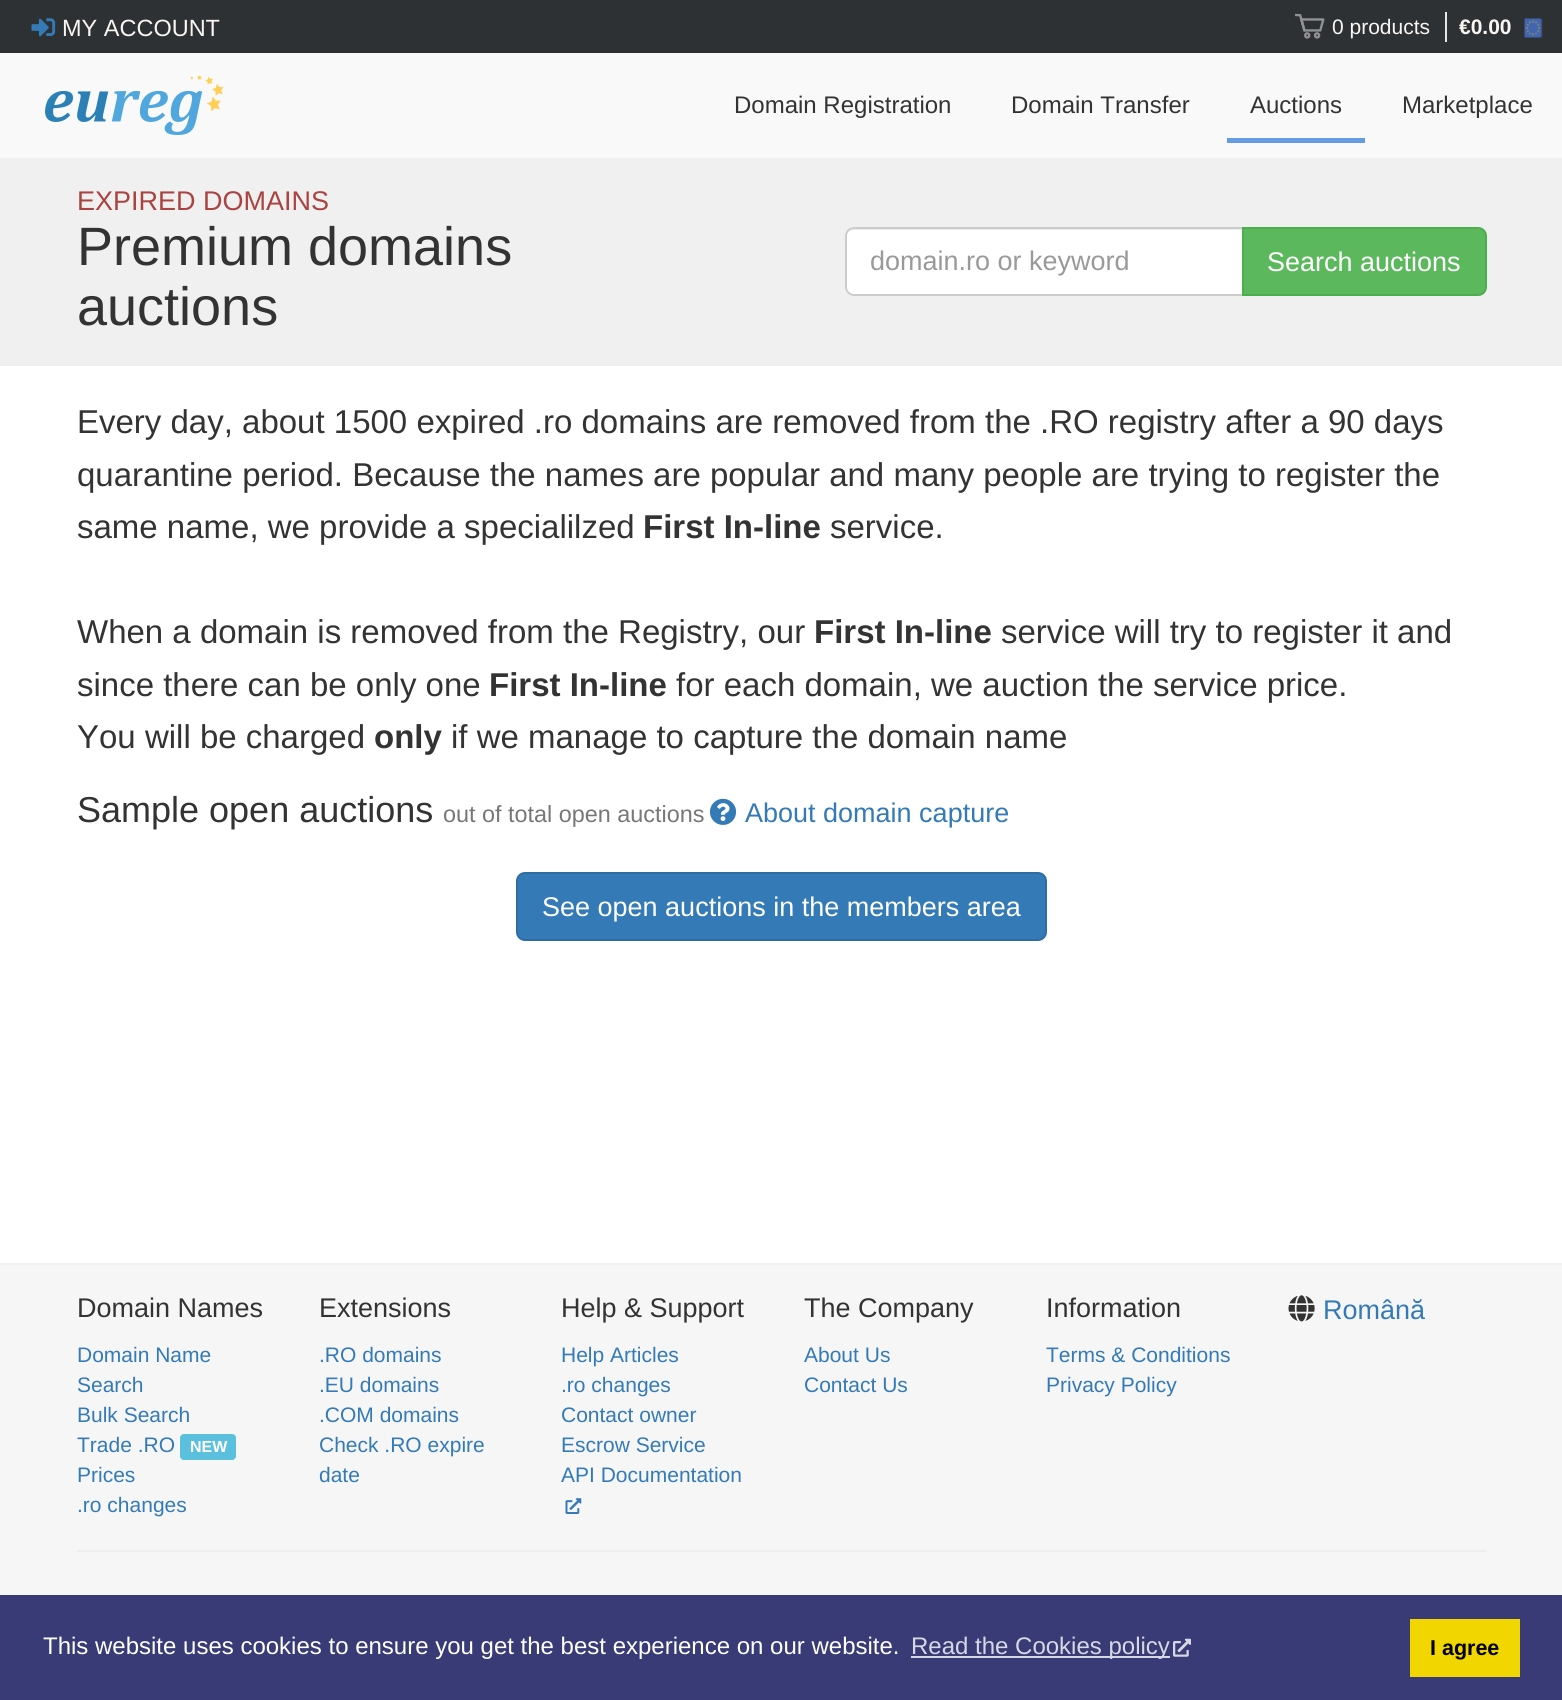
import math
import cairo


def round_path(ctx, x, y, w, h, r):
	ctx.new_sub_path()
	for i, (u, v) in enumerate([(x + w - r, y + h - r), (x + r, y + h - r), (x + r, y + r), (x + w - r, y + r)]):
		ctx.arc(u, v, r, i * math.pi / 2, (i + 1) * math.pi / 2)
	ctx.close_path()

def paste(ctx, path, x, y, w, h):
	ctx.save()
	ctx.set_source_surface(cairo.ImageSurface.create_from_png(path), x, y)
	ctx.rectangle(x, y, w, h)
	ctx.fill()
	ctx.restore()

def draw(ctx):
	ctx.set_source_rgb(1, 1, 1)
	ctx.paint()
	ctx.set_source_rgb(0.18, 0.192, 0.2)
	ctx.rectangle(0, 0, 1562, 53)
	ctx.fill()
	paste(ctx, 'media/1.png', 31, 18, 25, 19)
	ctx.select_font_face('Liberation Sans')
	ctx.set_font_size(23.5)
	ctx.set_source_rgb(0.969, 0.961, 0.949)
	ctx.move_to(62, 36)
	ctx.show_text('MY ACCOUNT')
	paste(ctx, 'media/2.png', 1295, 13, 30, 26)
	ctx.set_source_rgb(0.902, 0.902, 0.902)
	ctx.rectangle(1445, 12, 2, 30)
	ctx.fill()
	ctx.set_font_size(21)
	ctx.set_source_rgb(0.969, 0.961, 0.949)
	ctx.move_to(1332, 34)
	ctx.show_text('0 products')
	paste(ctx, 'media/3.png', 1524, 18, 19, 20)
	ctx.select_font_face('Liberation Sans', cairo.FONT_SLANT_NORMAL, cairo.FONT_WEIGHT_BOLD)
	ctx.move_to(1459, 34)
	ctx.show_text('€0.00')
	ctx.set_source_rgb(0.976, 0.976, 0.976)
	ctx.rectangle(0, 53, 1562, 105)
	ctx.fill()
	paste(ctx, 'media/4.png', 45, 75, 179, 60)
	ctx.select_font_face('Liberation Sans')
	ctx.set_font_size(24)
	ctx.set_source_rgb(0.2, 0.2, 0.2)
	ctx.move_to(734, 113)
	ctx.show_text('Domain Registration')
	ctx.move_to(1011, 113)
	ctx.show_text('Domain Transfer')
	ctx.set_source_rgb(0.4, 0.604, 0.882)
	ctx.rectangle(1227, 138, 138, 5)
	ctx.fill()
	ctx.set_source_rgb(0.2, 0.2, 0.2)
	ctx.move_to(1250, 113)
	ctx.show_text('Auctions')
	ctx.move_to(1402, 113)
	ctx.show_text('Marketplace')
	ctx.set_source_rgb(0.941, 0.941, 0.941)
	ctx.rectangle(0, 158, 1562, 208)
	ctx.fill()
	ctx.set_font_size(27)
	ctx.set_source_rgb(0.663, 0.267, 0.259)
	ctx.move_to(77, 210)
	ctx.show_text('EXPIRED DOMAINS')
	ctx.set_font_size(54)
	ctx.set_source_rgb(0.2, 0.2, 0.2)
	ctx.move_to(77, 265)
	ctx.show_text('Premium domains')
	ctx.move_to(77, 325)
	ctx.show_text('auctions')
	ctx.set_source_rgb(1, 1, 1)
	ctx.new_path()
	ctx.move_to(854, 227)
	ctx.line_to(1244, 227)
	ctx.line_to(1244, 296)
	ctx.line_to(854, 296)
	ctx.curve_to(849, 296, 845, 292, 845, 287)
	ctx.line_to(845, 236)
	ctx.curve_to(845, 231, 849, 227, 854, 227)
	ctx.close_path()
	ctx.fill()
	ctx.set_source_rgb(0.925, 0.925, 0.925)
	ctx.new_path()
	ctx.move_to(854, 230)
	ctx.line_to(1242, 230)
	ctx.line_to(1242, 228)
	ctx.line_to(854, 228)
	ctx.curve_to(850, 228, 846, 232, 846, 236)
	ctx.line_to(846, 237)
	ctx.curve_to(846, 233, 849, 230, 854, 230)
	ctx.close_path()
	ctx.fill()
	ctx.new_path()
	ctx.move_to(854, 228)
	ctx.line_to(1243, 228)
	ctx.line_to(1243, 295)
	ctx.line_to(854, 295)
	ctx.curve_to(849.5, 295, 846, 291.5, 846, 287)
	ctx.line_to(846, 236)
	ctx.curve_to(846, 231.5, 849.5, 228, 854, 228)
	ctx.close_path()
	ctx.set_source_rgb(0.8, 0.8, 0.8)
	ctx.stroke()
	ctx.set_font_size(27)
	ctx.set_source_rgb(0.6, 0.6, 0.6)
	ctx.move_to(870, 270)
	ctx.show_text('domain.ro or keyword')
	ctx.set_source_rgb(0.361, 0.722, 0.361)
	ctx.new_path()
	ctx.move_to(1243, 228)
	ctx.line_to(1478, 228)
	ctx.curve_to(1482.5, 228, 1486, 231.5, 1486, 236)
	ctx.line_to(1486, 287)
	ctx.curve_to(1486, 291.5, 1482.5, 295, 1478, 295)
	ctx.line_to(1243, 295)
	ctx.close_path()
	ctx.fill_preserve()
	ctx.set_source_rgb(0.298, 0.682, 0.298)
	ctx.stroke()
	ctx.set_source_rgb(1, 1, 1)
	ctx.move_to(1267, 271)
	ctx.show_text('Search auctions')
	ctx.set_font_size(33)
	ctx.set_source_rgb(0.2, 0.2, 0.2)
	for x, y, s in [
		(77, 433, 'Every day, about 1500 expired .ro domains are removed from the .RO registry after a 90 days'),
		(77, 486, 'quarantine period. Because the names are popular and many people are trying to register the'),
		(77, 538, 'same name, we provide a specialilzed'),
	]:
		ctx.move_to(x, y)
		ctx.show_text(s)
	ctx.select_font_face('Liberation Sans', cairo.FONT_SLANT_NORMAL, cairo.FONT_WEIGHT_BOLD)
	ctx.move_to(643, 538)
	ctx.show_text('First In-line')
	ctx.select_font_face('Liberation Sans')
	ctx.move_to(830, 538)
	ctx.show_text('service.')
	ctx.move_to(77, 643)
	ctx.show_text('When a domain is removed from the Registry, our')
	ctx.select_font_face('Liberation Sans', cairo.FONT_SLANT_NORMAL, cairo.FONT_WEIGHT_BOLD)
	ctx.move_to(814, 643)
	ctx.show_text('First In-line')
	ctx.select_font_face('Liberation Sans')
	ctx.move_to(1001, 643)
	ctx.show_text('service will try to register it and')
	ctx.move_to(77, 696)
	ctx.show_text('since there can be only one')
	ctx.select_font_face('Liberation Sans', cairo.FONT_SLANT_NORMAL, cairo.FONT_WEIGHT_BOLD)
	ctx.move_to(489, 696)
	ctx.show_text('First In-line')
	ctx.select_font_face('Liberation Sans')
	ctx.move_to(676, 696)
	ctx.show_text('for each domain, we auction the service price.')
	ctx.move_to(77, 748)
	ctx.show_text('You will be charged')
	ctx.select_font_face('Liberation Sans', cairo.FONT_SLANT_NORMAL, cairo.FONT_WEIGHT_BOLD)
	ctx.move_to(374, 748)
	ctx.show_text('only')
	ctx.select_font_face('Liberation Sans')
	ctx.move_to(451, 748)
	ctx.show_text('if we manage to capture the domain name')
	ctx.set_font_size(36)
	ctx.move_to(77, 822)
	ctx.show_text('Sample open auctions')
	ctx.set_font_size(23.4)
	ctx.set_source_rgb(0.467, 0.467, 0.467)
	ctx.move_to(443, 822)
	ctx.show_text('out of total open auctions')
	paste(ctx, 'media/5.png', 709, 798, 28, 27)
	ctx.set_font_size(27)
	ctx.set_source_rgb(0.2, 0.478, 0.718)
	ctx.move_to(745, 822)
	ctx.show_text('About domain capture')
	round_path(ctx, 517, 873, 529, 67, 8)
	ctx.fill_preserve()
	ctx.set_source_rgb(0.18, 0.427, 0.643)
	ctx.stroke()
	ctx.set_source_rgb(1, 1, 1)
	ctx.move_to(542, 916)
	ctx.show_text('See open auctions in the members area')
	ctx.set_source_rgb(0.941, 0.941, 0.941)
	ctx.rectangle(0, 1263, 1562, 2)
	ctx.fill()
	ctx.set_source_rgb(0.961, 0.961, 0.961)
	ctx.rectangle(0, 1265, 1562, 330)
	ctx.fill()
	ctx.set_source_rgb(0.2, 0.2, 0.2)
	ctx.move_to(77, 1317)
	ctx.show_text('Domain Names')
	ctx.set_font_size(21)
	ctx.set_source_rgb(0.2, 0.478, 0.718)
	for x, y, s in [
		(77, 1362, 'Domain Name'),
		(77, 1392, 'Search'),
		(77, 1422, 'Bulk Search'),
		(77, 1452, 'Trade .RO'),
	]:
		ctx.move_to(x, y)
		ctx.show_text(s)
	ctx.set_source_rgb(0.357, 0.753, 0.871)
	round_path(ctx, 180, 1434, 56, 26, 4)
	ctx.fill()
	ctx.select_font_face('Liberation Sans', cairo.FONT_SLANT_NORMAL, cairo.FONT_WEIGHT_BOLD)
	ctx.set_font_size(16)
	ctx.set_source_rgb(1, 1, 1)
	ctx.move_to(190, 1452)
	ctx.show_text('NEW')
	ctx.select_font_face('Liberation Sans')
	ctx.set_font_size(21)
	ctx.set_source_rgb(0.2, 0.478, 0.718)
	ctx.move_to(77, 1482)
	ctx.show_text('Prices')
	ctx.move_to(77, 1512)
	ctx.show_text('.ro changes')
	ctx.set_font_size(27)
	ctx.set_source_rgb(0.2, 0.2, 0.2)
	ctx.move_to(319, 1317)
	ctx.show_text('Extensions')
	ctx.set_font_size(21)
	ctx.set_source_rgb(0.2, 0.478, 0.718)
	for x, y, s in [
		(319, 1362, '.RO domains'),
		(319, 1392, '.EU domains'),
		(319, 1422, '.COM domains'),
		(319, 1452, 'Check .RO expire'),
		(319, 1482, 'date'),
	]:
		ctx.move_to(x, y)
		ctx.show_text(s)
	ctx.set_font_size(27)
	ctx.set_source_rgb(0.2, 0.2, 0.2)
	ctx.move_to(561, 1317)
	ctx.show_text('Help & Support')
	ctx.set_font_size(21)
	ctx.set_source_rgb(0.2, 0.478, 0.718)
	for x, y, s in [
		(561, 1362, 'Help Articles'),
		(561, 1392, '.ro changes'),
		(561, 1422, 'Contact owner'),
		(561, 1452, 'Escrow Service'),
		(561, 1482, 'API Documentation'),
	]:
		ctx.move_to(x, y)
		ctx.show_text(s)
	paste(ctx, 'media/6.png', 565, 1498, 17, 16)
	ctx.set_font_size(27)
	ctx.set_source_rgb(0.2, 0.2, 0.2)
	ctx.move_to(804, 1317)
	ctx.show_text('The Company')
	ctx.set_font_size(21)
	ctx.set_source_rgb(0.2, 0.478, 0.718)
	ctx.move_to(804, 1362)
	ctx.show_text('About Us')
	ctx.move_to(804, 1392)
	ctx.show_text('Contact Us')
	ctx.set_font_size(27)
	ctx.set_source_rgb(0.2, 0.2, 0.2)
	ctx.move_to(1046, 1317)
	ctx.show_text('Information')
	ctx.set_font_size(21)
	ctx.set_source_rgb(0.2, 0.478, 0.718)
	ctx.move_to(1046, 1362)
	ctx.show_text('Terms & Conditions')
	ctx.move_to(1046, 1392)
	ctx.show_text('Privacy Policy')
	paste(ctx, 'media/7.png', 1288, 1295, 27, 27)
	ctx.set_font_size(27)
	ctx.move_to(1323, 1319)
	ctx.show_text('Română')
	ctx.set_source_rgb(0.933, 0.933, 0.933)
	ctx.rectangle(77, 1550, 1410, 2)
	ctx.fill()
	ctx.set_source_rgb(0.22, 0.231, 0.459)
	ctx.rectangle(0, 1595, 1562, 105)
	ctx.fill()
	ctx.set_font_size(24)
	ctx.set_source_rgb(1, 1, 1)
	ctx.move_to(43, 1654)
	ctx.show_text('This website uses cookies to ensure you get the best experience on our website.')
	ctx.set_source_rgb(0.843, 0.847, 0.89)
	ctx.rectangle(911, 1656, 259, 2)
	ctx.fill()
	ctx.move_to(911, 1654)
	ctx.show_text('Read the Cookies policy')
	paste(ctx, 'media/8.png', 1173, 1638, 18, 19)
	ctx.set_source_rgb(0.945, 0.839, 0)
	ctx.rectangle(1410, 1619, 110, 58)
	ctx.fill()
	ctx.select_font_face('Liberation Sans', cairo.FONT_SLANT_NORMAL, cairo.FONT_WEIGHT_BOLD)
	ctx.set_font_size(21.5)
	ctx.set_source_rgb(0, 0, 0)
	ctx.move_to(1430, 1655)
	ctx.show_text('I agree')


surface = cairo.ImageSurface(cairo.FORMAT_RGB24, 1562, 1700)
ctx = cairo.Context(surface)
options = cairo.FontOptions()
options.set_hint_metrics(cairo.HINT_METRICS_OFF)
options.set_hint_style(cairo.HINT_STYLE_NONE)
ctx.set_font_options(options)
ctx.set_miter_limit(4)
draw(ctx)
surface.write_to_png('image.png')
